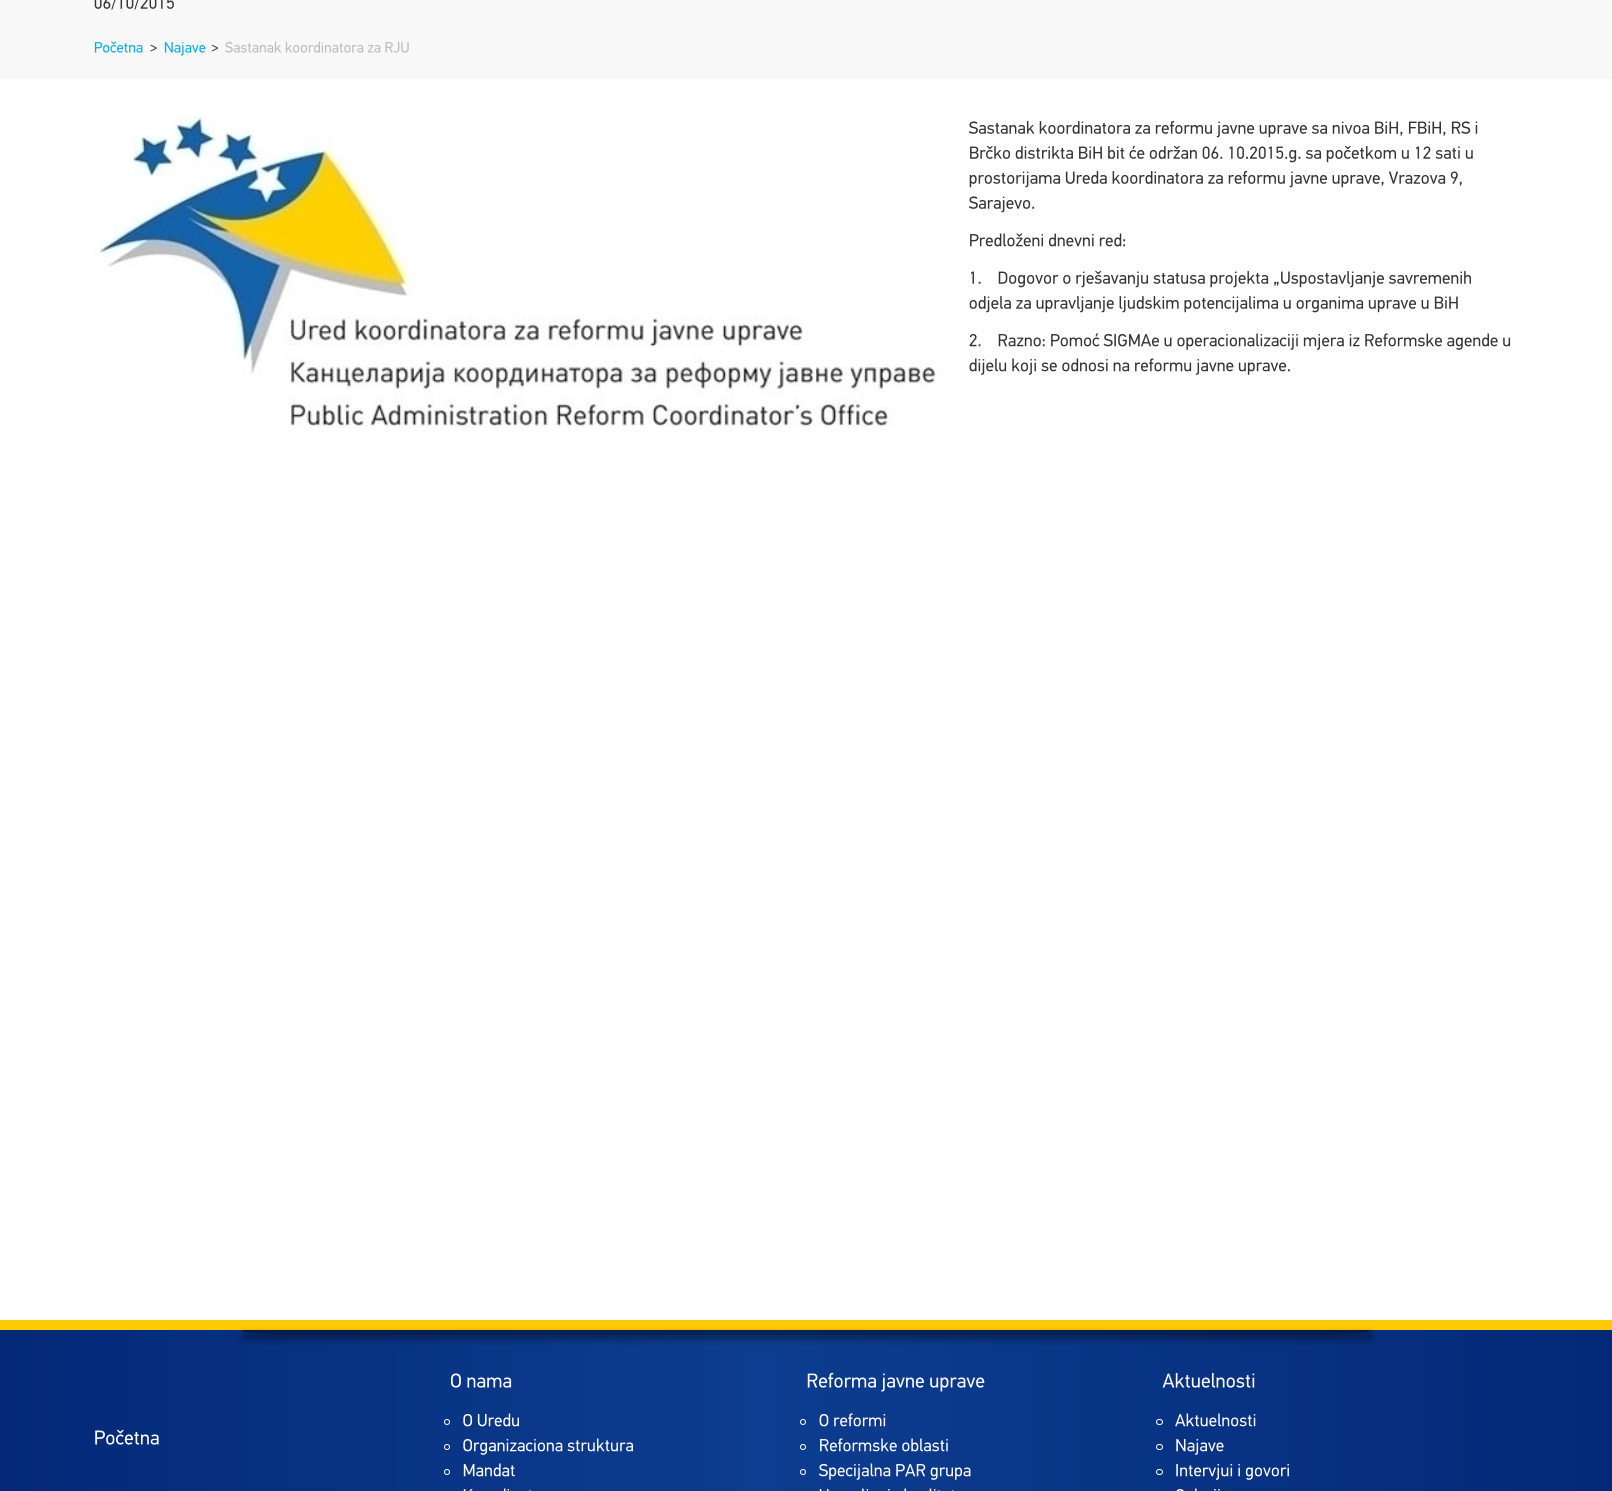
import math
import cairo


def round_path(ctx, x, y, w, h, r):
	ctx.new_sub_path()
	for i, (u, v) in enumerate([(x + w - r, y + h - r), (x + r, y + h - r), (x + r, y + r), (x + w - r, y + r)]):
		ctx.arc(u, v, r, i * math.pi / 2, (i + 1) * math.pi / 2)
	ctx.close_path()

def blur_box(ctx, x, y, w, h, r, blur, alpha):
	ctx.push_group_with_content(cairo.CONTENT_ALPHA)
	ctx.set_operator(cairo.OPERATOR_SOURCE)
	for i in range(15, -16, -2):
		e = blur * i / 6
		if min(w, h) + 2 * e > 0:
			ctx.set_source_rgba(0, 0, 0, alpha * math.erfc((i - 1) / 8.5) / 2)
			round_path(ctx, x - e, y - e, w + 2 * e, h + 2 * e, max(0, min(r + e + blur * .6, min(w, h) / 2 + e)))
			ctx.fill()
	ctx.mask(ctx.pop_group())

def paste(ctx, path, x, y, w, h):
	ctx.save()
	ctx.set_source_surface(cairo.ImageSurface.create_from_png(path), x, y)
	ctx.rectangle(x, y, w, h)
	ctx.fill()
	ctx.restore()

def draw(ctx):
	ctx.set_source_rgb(1, 1, 1)
	ctx.paint()
	ctx.set_source_rgb(0.969, 0.969, 0.969)
	ctx.rectangle(0, 0, 1612, 79)
	ctx.fill()
	paste(ctx, 'media/1.png', 94, 0, 80, 10)
	paste(ctx, 'media/2.png', 94, 41, 49, 12)
	paste(ctx, 'media/3.png', 150, 44, 7, 8)
	paste(ctx, 'media/4.png', 164, 42, 42, 14)
	paste(ctx, 'media/5.png', 211, 44, 7, 8)
	paste(ctx, 'media/6.png', 225, 41, 184, 12)
	paste(ctx, 'media/7.png', 94, 116, 847, 311)
	paste(ctx, 'media/8.png', 968, 120, 510, 18)
	paste(ctx, 'media/9.png', 970, 145, 503, 18)
	paste(ctx, 'media/10.png', 969, 170, 493, 18)
	paste(ctx, 'media/11.png', 968, 196, 67, 17)
	paste(ctx, 'media/12.png', 970, 233, 156, 14)
	paste(ctx, 'media/13.png', 970, 270, 501, 18)
	paste(ctx, 'media/14.png', 969, 296, 489, 17)
	paste(ctx, 'media/15.png', 969, 333, 542, 17)
	paste(ctx, 'media/16.png', 969, 358, 321, 17)
	gradient = cairo.LinearGradient(0, 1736, 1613, 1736)
	gradient.add_color_stop_rgba(0, 0.012, 0.161, 0.471, 1)
	gradient.add_color_stop_rgba(0.47, 0.051, 0.239, 0.565, 1)
	gradient.add_color_stop_rgba(1, 0.012, 0.161, 0.471, 1)
	ctx.set_source(gradient)
	ctx.rectangle(0, 1330, 1612, 161)
	ctx.fill()
	ctx.set_source_rgb(1, 0.792, 0.02)
	ctx.rectangle(0, 1320, 1612, 10)
	ctx.fill()
	ctx.save()
	ctx.set_fill_rule(cairo.FILL_RULE_EVEN_ODD)
	ctx.new_path()
	ctx.move_to(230, 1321)
	ctx.line_to(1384, 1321)
	ctx.line_to(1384, 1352)
	ctx.line_to(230, 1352)
	ctx.close_path()
	ctx.move_to(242.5, 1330)
	ctx.line_to(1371, 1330)
	ctx.curve_to(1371, 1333, 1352, 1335, 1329, 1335)
	ctx.line_to(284, 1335)
	ctx.curve_to(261, 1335, 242.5, 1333, 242.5, 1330)
	ctx.close_path()
	ctx.clip()
	ctx.set_source_rgb(0, 0, 0)
	blur_box(ctx, 243, 1334, 1128, 5, 5, 4, 0.4)
	ctx.restore()
	ctx.set_source_rgba(0, 0, 0, 0.4)
	ctx.new_path()
	ctx.move_to(242, 1330)
	ctx.line_to(1371, 1330)
	ctx.curve_to(1371, 1333, 1352, 1335, 1329, 1335)
	ctx.line_to(284, 1335)
	ctx.curve_to(261, 1335, 242, 1333, 242, 1330)
	ctx.close_path()
	ctx.fill()
	paste(ctx, 'media/17.png', 95, 1429, 64, 16)
	paste(ctx, 'media/18.png', 451, 1373, 61, 15)
	ctx.arc(447, 1422, 2.5, 0, 2 * math.pi)
	ctx.set_source_rgb(1, 1, 1)
	ctx.set_line_width(1)
	ctx.stroke()
	paste(ctx, 'media/19.png', 463, 1413, 56, 14)
	ctx.arc(447, 1447, 2.5, 0, 2 * math.pi)
	ctx.stroke()
	paste(ctx, 'media/20.png', 463, 1438, 170, 17)
	ctx.arc(447, 1472, 2.5, 0, 2 * math.pi)
	ctx.stroke()
	paste(ctx, 'media/21.png', 463, 1463, 52, 14)
	paste(ctx, 'media/22.png', 463, 1488, 68, 3)
	paste(ctx, 'media/23.png', 807, 1372, 178, 20)
	ctx.arc(803, 1422, 2.5, 0, 2 * math.pi)
	ctx.stroke()
	paste(ctx, 'media/24.png', 819, 1413, 67, 14)
	ctx.arc(803, 1447, 2.5, 0, 2 * math.pi)
	ctx.stroke()
	paste(ctx, 'media/25.png', 820, 1438, 128, 14)
	ctx.arc(803, 1472, 2.5, 0, 2 * math.pi)
	ctx.stroke()
	paste(ctx, 'media/26.png', 818, 1463, 153, 17)
	paste(ctx, 'media/27.png', 819, 1488, 135, 3)
	paste(ctx, 'media/28.png', 1162, 1373, 93, 15)
	round_path(ctx, 1156.5, 1419.5, 6, 5, 2.5)
	ctx.stroke()
	paste(ctx, 'media/29.png', 1175, 1413, 81, 14)
	round_path(ctx, 1156.5, 1444.5, 6, 5, 2.5)
	ctx.stroke()
	paste(ctx, 'media/30.png', 1176, 1439, 48, 16)
	round_path(ctx, 1156.5, 1469.5, 6, 5, 2.5)
	ctx.stroke()
	paste(ctx, 'media/31.png', 1176, 1464, 113, 16)
	paste(ctx, 'media/32.png', 1176, 1488, 44, 3)


surface = cairo.ImageSurface(cairo.FORMAT_RGB24, 1612, 1491)
ctx = cairo.Context(surface)
options = cairo.FontOptions()
options.set_hint_metrics(cairo.HINT_METRICS_OFF)
options.set_hint_style(cairo.HINT_STYLE_NONE)
ctx.set_font_options(options)
ctx.set_miter_limit(4)
draw(ctx)
surface.write_to_png('image.png')
